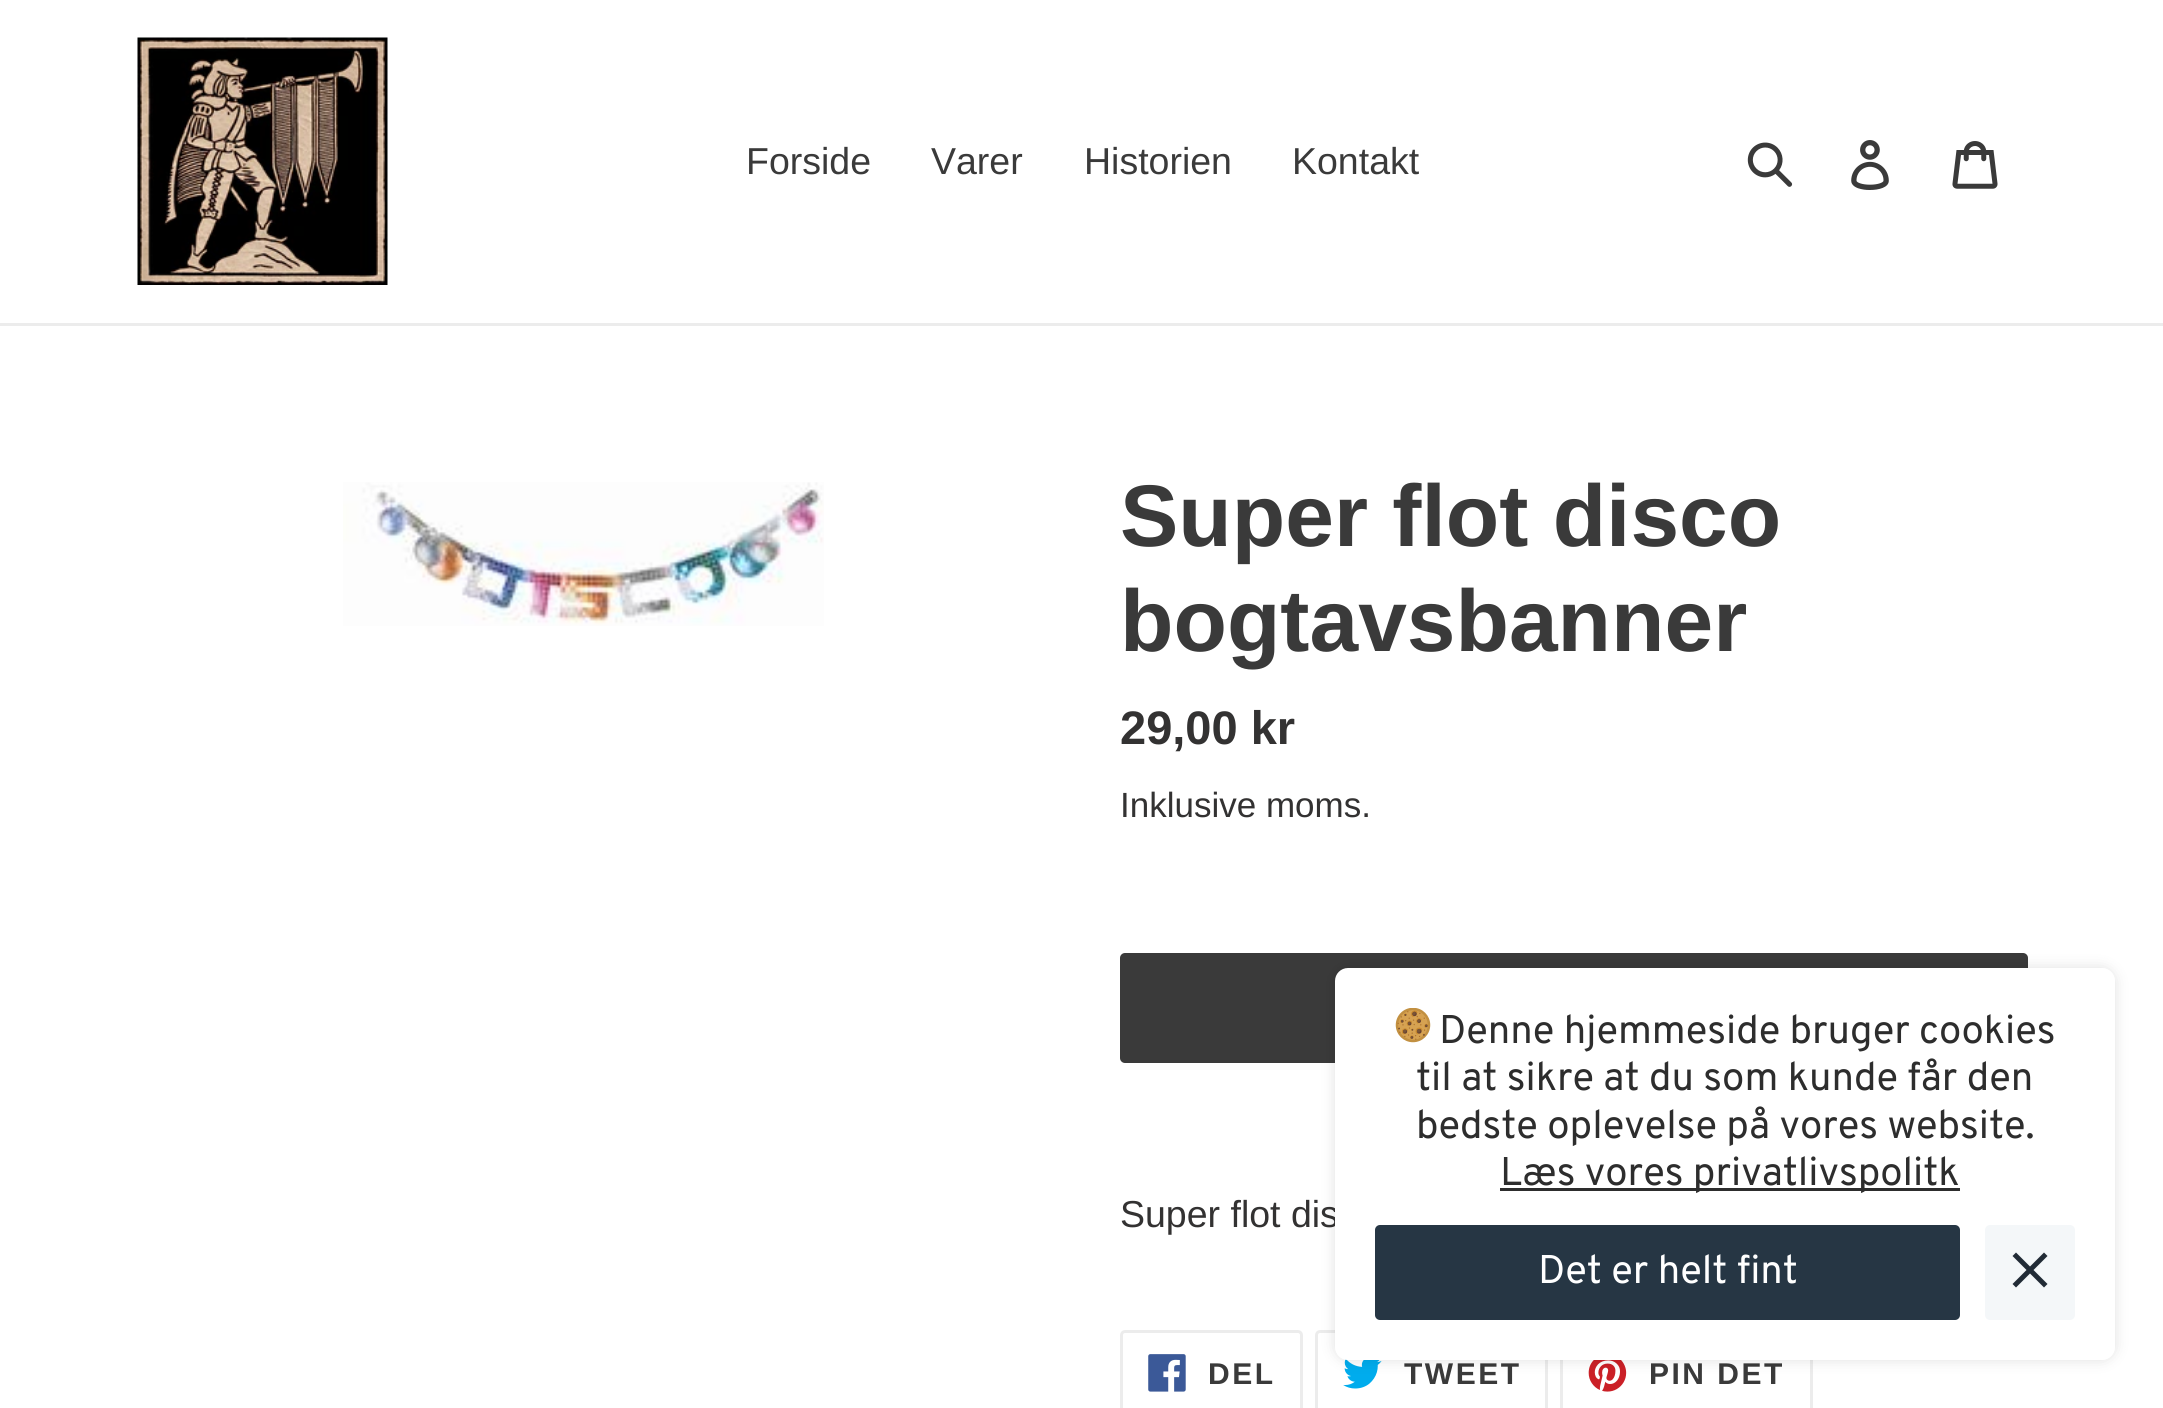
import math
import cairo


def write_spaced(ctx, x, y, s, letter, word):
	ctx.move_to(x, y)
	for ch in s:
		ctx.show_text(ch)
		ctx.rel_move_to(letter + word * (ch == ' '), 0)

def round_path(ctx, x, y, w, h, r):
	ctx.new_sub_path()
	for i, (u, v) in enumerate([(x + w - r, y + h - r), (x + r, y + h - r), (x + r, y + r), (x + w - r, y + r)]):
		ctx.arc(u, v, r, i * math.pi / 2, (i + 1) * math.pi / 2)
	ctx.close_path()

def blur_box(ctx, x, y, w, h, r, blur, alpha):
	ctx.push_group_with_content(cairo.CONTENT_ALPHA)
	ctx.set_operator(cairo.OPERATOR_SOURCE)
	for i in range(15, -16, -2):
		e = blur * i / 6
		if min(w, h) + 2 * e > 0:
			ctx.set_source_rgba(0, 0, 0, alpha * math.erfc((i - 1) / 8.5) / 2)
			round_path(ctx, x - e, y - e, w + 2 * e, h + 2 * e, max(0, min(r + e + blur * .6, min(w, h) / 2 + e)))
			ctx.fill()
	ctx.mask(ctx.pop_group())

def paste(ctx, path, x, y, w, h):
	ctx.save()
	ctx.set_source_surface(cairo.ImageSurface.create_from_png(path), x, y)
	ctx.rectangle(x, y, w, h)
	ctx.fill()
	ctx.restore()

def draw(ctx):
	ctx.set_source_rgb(1, 1, 1)
	ctx.paint()
	ctx.set_source_rgb(0.922, 0.922, 0.922)
	ctx.rectangle(0, 323, 2163, 3)
	ctx.fill()
	paste(ctx, 'media/1.png', 137, 37, 251, 248)
	ctx.select_font_face('Liberation Sans')
	ctx.set_font_size(37.5)
	ctx.set_source_rgb(0.227, 0.227, 0.227)
	for x, y, s in [
		(746, 174, 'Forside'),
		(931, 174, 'Varer'),
		(1084, 174, 'Historien'),
		(1292, 174, 'Kontakt'),
	]:
		ctx.move_to(x, y)
		ctx.show_text(s)
	paste(ctx, 'media/2.png', 1747, 142, 46, 45)
	paste(ctx, 'media/3.png', 1851, 140, 38, 50)
	paste(ctx, 'media/4.png', 1952, 141, 46, 48)
	paste(ctx, 'media/5.png', 343, 482, 481, 144)
	ctx.select_font_face('Liberation Sans', cairo.FONT_SLANT_NORMAL, cairo.FONT_WEIGHT_BOLD)
	ctx.set_font_size(87.5)
	ctx.move_to(1120, 546)
	ctx.show_text('Super flot disco')
	ctx.move_to(1120, 651)
	ctx.show_text('bogtavsbanner')
	ctx.set_font_size(47)
	ctx.set_source_rgb(0.2, 0.196, 0.196)
	ctx.move_to(1120, 744)
	ctx.show_text('29,00 kr')
	ctx.select_font_face('Liberation Sans')
	ctx.set_font_size(35)
	ctx.move_to(1120, 817)
	ctx.show_text('Inklusive moms.')
	ctx.set_source_rgb(0.227, 0.227, 0.227)
	round_path(ctx, 1120, 953, 908, 110, 5)
	ctx.fill()
	ctx.set_font_size(37.5)
	ctx.set_source_rgb(0.2, 0.196, 0.196)
	ctx.move_to(1120, 1227)
	ctx.show_text('Super flot dis')
	round_path(ctx, 1121.5, 1331.5, 180, 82, 3.5)
	ctx.set_source_rgb(0.922, 0.922, 0.922)
	ctx.set_line_width(3)
	ctx.stroke()
	paste(ctx, 'media/6.png', 1148, 1354, 38, 38)
	ctx.select_font_face('Liberation Sans', cairo.FONT_SLANT_NORMAL, cairo.FONT_WEIGHT_BOLD)
	ctx.set_font_size(30)
	ctx.set_source_rgb(0.227, 0.227, 0.227)
	write_spaced(ctx, 1208, 1384, 'DEL', 2.5, 0)
	round_path(ctx, 1316.5, 1331.5, 230, 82, 3.5)
	ctx.set_source_rgb(0.922, 0.922, 0.922)
	ctx.stroke()
	paste(ctx, 'media/7.png', 1343, 1359, 39, 30)
	ctx.set_source_rgb(0.227, 0.227, 0.227)
	write_spaced(ctx, 1404, 1384, 'TWEET', 2.5, 0)
	ctx.rectangle(1561.5, 1331.5, 250, 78)
	ctx.set_source_rgb(0.922, 0.922, 0.922)
	ctx.stroke()
	paste(ctx, 'media/8.png', 1588, 1360, 39, 32)
	ctx.set_source_rgb(0.227, 0.227, 0.227)
	write_spaced(ctx, 1649, 1384, 'PIN DET', 2.5, 0)
	ctx.set_source_rgb(1, 1, 1)
	round_path(ctx, 1335, 968, 780, 392, 13)
	ctx.fill()
	ctx.save()
	ctx.set_fill_rule(cairo.FILL_RULE_EVEN_ODD)
	ctx.new_path()
	ctx.move_to(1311, 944)
	ctx.line_to(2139, 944)
	ctx.line_to(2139, 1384)
	ctx.line_to(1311, 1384)
	ctx.close_path()
	ctx.move_to(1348, 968)
	ctx.line_to(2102, 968)
	ctx.curve_to(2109, 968, 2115, 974, 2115, 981)
	ctx.line_to(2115, 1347)
	ctx.curve_to(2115, 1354, 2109, 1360, 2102, 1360)
	ctx.line_to(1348, 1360)
	ctx.curve_to(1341, 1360, 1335, 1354, 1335, 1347)
	ctx.line_to(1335, 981)
	ctx.curve_to(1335, 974, 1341, 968, 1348, 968)
	ctx.close_path()
	ctx.clip()
	ctx.set_source_rgb(0, 0, 0)
	blur_box(ctx, 1335, 968, 780, 392, 13, 7.5, 0.12)
	ctx.restore()
	paste(ctx, 'media/9.png', 1395, 1008, 36, 35)
	ctx.select_font_face('Overpass')
	ctx.set_font_size(40)
	ctx.set_source_rgb(0.176, 0.176, 0.176)
	for x, y, s in [
		(1439, 1043, 'Denne hjemmeside bruger cookies'),
		(1416, 1090, 'til at sikre at du som kunde får den'),
		(1416, 1138, 'bedste oplevelse på vores website.'),
	]:
		ctx.move_to(x, y)
		ctx.show_text(s)
	ctx.rectangle(1500, 1188, 460, 3)
	ctx.fill()
	ctx.move_to(1500, 1185)
	ctx.show_text('Læs vores privatlivspolitk')
	ctx.set_source_rgb(0.149, 0.212, 0.267)
	round_path(ctx, 1375, 1225, 585, 95, 5)
	ctx.fill()
	ctx.set_source_rgb(1, 1, 1)
	ctx.move_to(1538, 1283)
	ctx.show_text('Det er helt fint')
	ctx.set_source_rgb(0.957, 0.965, 0.973)
	round_path(ctx, 1985, 1225, 90, 95, 5)
	ctx.fill()
	ctx.set_source_rgb(0.129, 0.169, 0.212)
	ctx.new_path()
	ctx.move_to(2047.5, 1256)
	ctx.line_to(2044, 1252.5)
	ctx.line_to(2030, 1266.5)
	ctx.line_to(2016, 1252.5)
	ctx.line_to(2012.5, 1256)
	ctx.line_to(2026.5, 1270)
	ctx.line_to(2012.5, 1284)
	ctx.line_to(2016, 1287.5)
	ctx.line_to(2030, 1273.5)
	ctx.line_to(2044, 1287.5)
	ctx.line_to(2047.5, 1284)
	ctx.line_to(2033.5, 1270)
	ctx.close_path()
	ctx.fill()


surface = cairo.ImageSurface(cairo.FORMAT_RGB24, 2163, 1408)
ctx = cairo.Context(surface)
options = cairo.FontOptions()
options.set_hint_metrics(cairo.HINT_METRICS_OFF)
options.set_hint_style(cairo.HINT_STYLE_NONE)
ctx.set_font_options(options)
ctx.set_miter_limit(4)
draw(ctx)
surface.write_to_png('image.png')
